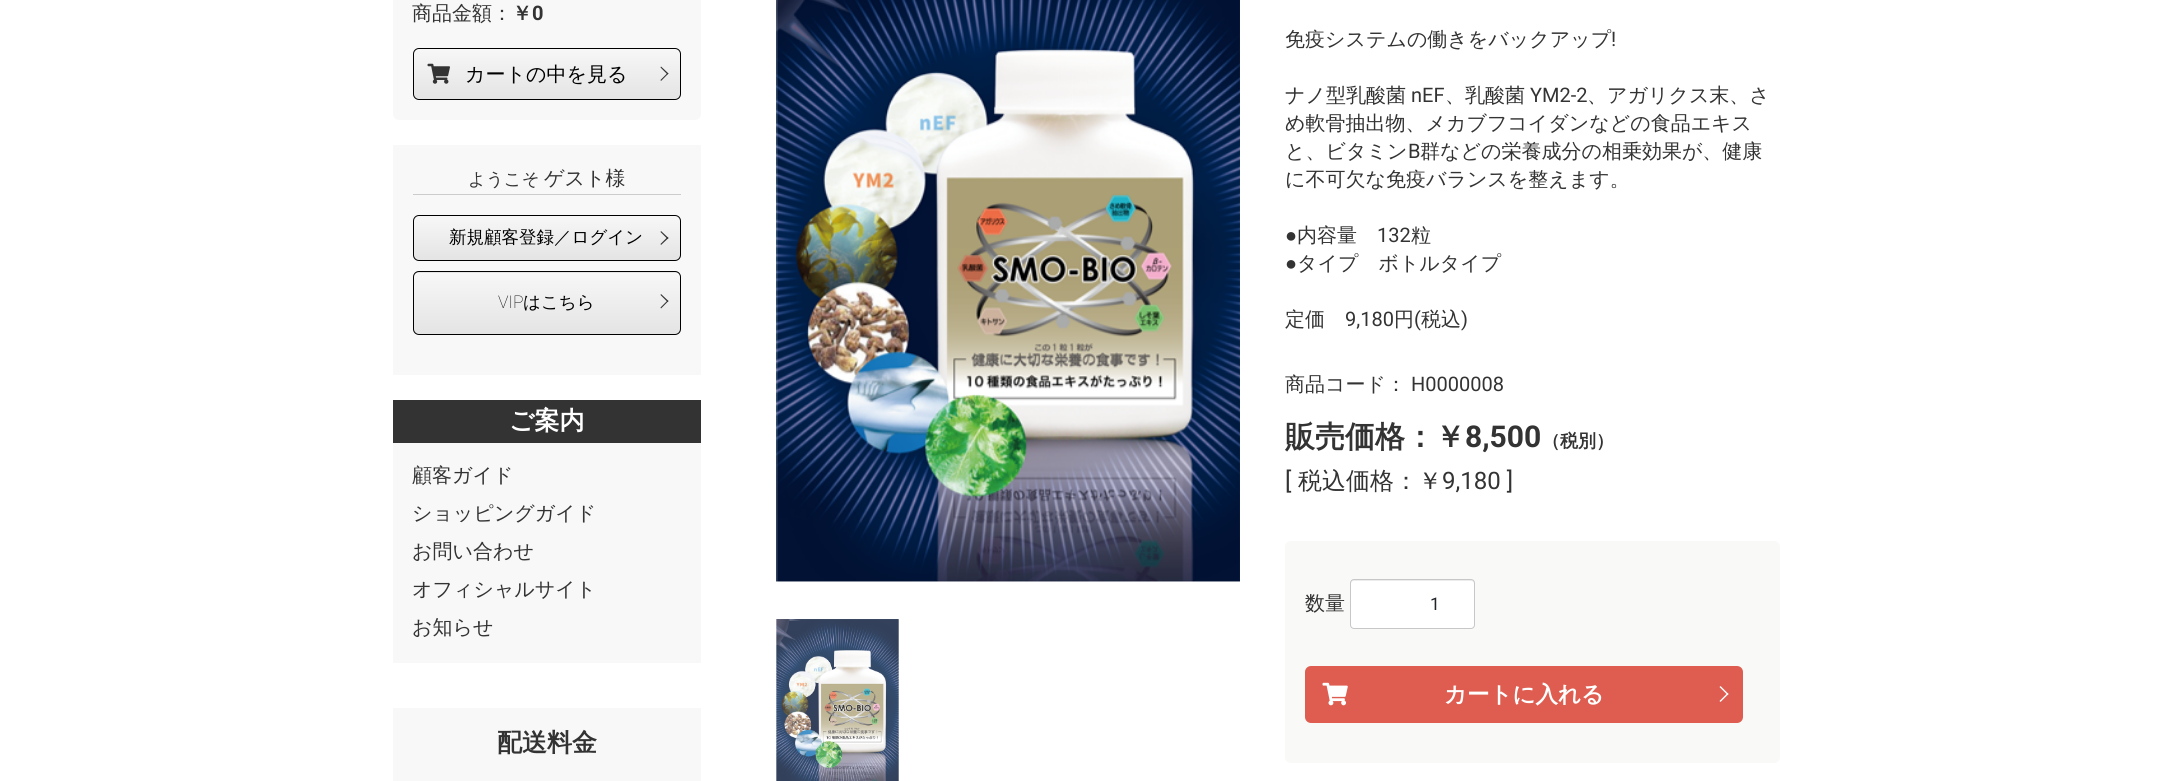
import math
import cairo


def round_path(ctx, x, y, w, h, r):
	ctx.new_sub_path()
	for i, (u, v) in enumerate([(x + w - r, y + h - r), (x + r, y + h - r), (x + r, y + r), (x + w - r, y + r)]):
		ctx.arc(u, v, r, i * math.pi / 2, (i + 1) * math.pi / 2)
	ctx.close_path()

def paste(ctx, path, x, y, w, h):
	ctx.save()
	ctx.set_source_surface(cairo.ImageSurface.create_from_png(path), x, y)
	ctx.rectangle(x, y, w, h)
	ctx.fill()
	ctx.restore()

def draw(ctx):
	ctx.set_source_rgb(1, 1, 1)
	ctx.paint()
	ctx.set_source_rgb(0.969, 0.969, 0.969)
	round_path(ctx, 393, -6, 308, 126, 6)
	ctx.fill()
	ctx.select_font_face('WenQuanYi Zen Hei Medium')
	ctx.set_font_size(20)
	ctx.set_source_rgb(0.2, 0.2, 0.2)
	ctx.move_to(412, 20)
	ctx.show_text('商品金額：')
	ctx.select_font_face('WenQuanYi Zen Hei', cairo.FONT_SLANT_NORMAL, cairo.FONT_WEIGHT_BOLD)
	ctx.move_to(512, 20)
	ctx.show_text('￥')
	ctx.select_font_face('Roboto', cairo.FONT_SLANT_NORMAL, cairo.FONT_WEIGHT_BOLD)
	ctx.move_to(532, 20)
	ctx.show_text('0')
	ctx.save()
	round_path(ctx, 413, 48, 268, 52, 6)
	ctx.clip()
	gradient = cairo.LinearGradient(547, 49, 547, 99)
	gradient.add_color_stop_rgba(0, 0.969, 0.969, 0.969, 1)
	gradient.add_color_stop_rgba(1, 0.894, 0.894, 0.894, 1)
	ctx.set_source(gradient)
	ctx.rectangle(413, 49, 268, 50)
	ctx.fill()
	ctx.restore()
	round_path(ctx, 413.5, 48.5, 267, 51, 5.5)
	ctx.set_source_rgb(0, 0, 0)
	ctx.set_line_width(1)
	ctx.stroke()
	paste(ctx, 'media/1.png', 427, 63, 23, 21)
	ctx.select_font_face('WenQuanYi Zen Hei Medium')
	ctx.move_to(465, 81)
	ctx.show_text('カートの中を見る')
	ctx.set_source_rgb(0.2, 0.2, 0.2)
	ctx.new_path()
	ctx.move_to(661, 66.5)
	ctx.line_to(668.5, 73.5)
	ctx.line_to(667.5, 74.5)
	ctx.line_to(660.5, 67.5)
	ctx.close_path()
	ctx.fill()
	ctx.new_path()
	ctx.move_to(667.5, 73)
	ctx.line_to(668.5, 73.5)
	ctx.line_to(661, 81)
	ctx.line_to(660.5, 80)
	ctx.close_path()
	ctx.fill()
	ctx.set_source_rgb(0.969, 0.969, 0.969)
	ctx.rectangle(393, 145, 308, 230)
	ctx.fill()
	ctx.set_source_rgb(0.8, 0.8, 0.8)
	ctx.rectangle(413, 194, 268, 1)
	ctx.fill()
	ctx.set_font_size(17.5)
	ctx.set_source_rgb(0.2, 0.2, 0.2)
	ctx.move_to(468, 185)
	ctx.show_text('ようこそ')
	ctx.set_font_size(20)
	ctx.move_to(544, 185)
	ctx.show_text('ゲスト様')
	ctx.save()
	round_path(ctx, 413, 215, 268, 46, 6)
	ctx.clip()
	gradient = cairo.LinearGradient(547, 216, 547, 260)
	gradient.add_color_stop_rgba(0, 0.969, 0.969, 0.969, 1)
	gradient.add_color_stop_rgba(1, 0.894, 0.894, 0.894, 1)
	ctx.set_source(gradient)
	ctx.rectangle(413, 216, 268, 44)
	ctx.fill()
	ctx.restore()
	round_path(ctx, 413.5, 215.5, 267, 45, 5.5)
	ctx.set_source_rgb(0, 0, 0)
	ctx.stroke()
	ctx.set_font_size(17.5)
	ctx.move_to(449, 243)
	ctx.show_text('新規顧客登録／ログイン')
	ctx.set_source_rgb(0.2, 0.2, 0.2)
	ctx.new_path()
	ctx.move_to(661, 231)
	ctx.line_to(668.5, 238)
	ctx.line_to(667.5, 239)
	ctx.line_to(660.5, 232)
	ctx.close_path()
	ctx.fill()
	ctx.new_path()
	ctx.move_to(667.5, 237)
	ctx.line_to(668.5, 238)
	ctx.line_to(661, 245)
	ctx.line_to(660.5, 244)
	ctx.close_path()
	ctx.fill()
	ctx.save()
	round_path(ctx, 413, 271, 268, 64, 6)
	ctx.clip()
	gradient = cairo.LinearGradient(547, 211, 547, 273)
	gradient.add_color_stop_rgba(0, 0.969, 0.969, 0.969, 1)
	gradient.add_color_stop_rgba(1, 0.894, 0.894, 0.894, 1)
	ctx.set_source(gradient)
	ctx.rectangle(413, 271, 268, 2)
	ctx.fill()
	gradient = cairo.LinearGradient(547, 273, 547, 334)
	gradient.add_color_stop_rgba(0, 0.969, 0.969, 0.969, 1)
	gradient.add_color_stop_rgba(1, 0.894, 0.894, 0.894, 1)
	ctx.set_source(gradient)
	ctx.rectangle(413, 273, 268, 61)
	ctx.fill()
	ctx.restore()
	round_path(ctx, 413.5, 271.5, 267, 63, 5.5)
	ctx.set_source_rgb(0, 0, 0)
	ctx.stroke()
	ctx.select_font_face('Roboto Thin')
	ctx.move_to(498, 308)
	ctx.show_text('VIP')
	ctx.select_font_face('WenQuanYi Zen Hei Medium')
	ctx.move_to(523, 308)
	ctx.show_text('はこちら')
	ctx.set_source_rgb(0.2, 0.2, 0.2)
	ctx.new_path()
	ctx.move_to(661, 294)
	ctx.line_to(668.5, 301)
	ctx.line_to(667.5, 302)
	ctx.line_to(660.5, 295)
	ctx.close_path()
	ctx.fill()
	ctx.new_path()
	ctx.move_to(667.5, 300.5)
	ctx.line_to(668.5, 301)
	ctx.line_to(661, 308.5)
	ctx.line_to(660.5, 307.5)
	ctx.close_path()
	ctx.fill()
	ctx.rectangle(393, 400, 308, 43)
	ctx.fill()
	ctx.select_font_face('WenQuanYi Zen Hei', cairo.FONT_SLANT_NORMAL, cairo.FONT_WEIGHT_BOLD)
	ctx.set_font_size(25)
	ctx.set_source_rgb(1, 1, 1)
	ctx.move_to(509, 429)
	ctx.show_text('ご案内')
	ctx.set_source_rgb(0.969, 0.969, 0.969)
	ctx.rectangle(393, 443, 308, 220)
	ctx.fill()
	ctx.select_font_face('WenQuanYi Zen Hei Medium')
	ctx.set_font_size(20)
	ctx.set_source_rgb(0.2, 0.2, 0.2)
	for x, y, s in [
		(412, 482, '顧客ガイド'),
		(412, 520, 'ショッピングガイド'),
		(412, 558, 'お問い合わせ'),
		(412, 596, 'オフィシャルサイト'),
		(412, 634, 'お知らせ'),
	]:
		ctx.move_to(x, y)
		ctx.show_text(s)
	ctx.set_source_rgb(0.969, 0.969, 0.969)
	ctx.rectangle(393, 708, 308, 73)
	ctx.fill()
	ctx.select_font_face('WenQuanYi Zen Hei', cairo.FONT_SLANT_NORMAL, cairo.FONT_WEIGHT_BOLD)
	ctx.set_font_size(25)
	ctx.set_source_rgb(0.2, 0.2, 0.2)
	ctx.move_to(497, 751)
	ctx.show_text('配送料金')
	paste(ctx, 'media/2.png', 776, 0, 464, 582)
	paste(ctx, 'media/3.png', 776, 619, 123, 162)
	ctx.select_font_face('WenQuanYi Zen Hei Medium')
	ctx.set_font_size(20)
	ctx.move_to(1285, 46)
	ctx.show_text('免疫システムの働きをバックアップ')
	ctx.select_font_face('Roboto')
	ctx.move_to(1611, 46)
	ctx.show_text('!')
	ctx.select_font_face('WenQuanYi Zen Hei Medium')
	ctx.move_to(1285, 102)
	ctx.show_text('ナノ型乳酸菌')
	ctx.select_font_face('Roboto')
	ctx.move_to(1411, 102)
	ctx.show_text('nEF')
	ctx.select_font_face('WenQuanYi Zen Hei Medium')
	ctx.move_to(1445, 102)
	ctx.show_text('、乳酸菌')
	ctx.select_font_face('Roboto')
	ctx.move_to(1530, 102)
	ctx.show_text('YM2-2')
	ctx.select_font_face('WenQuanYi Zen Hei Medium')
	for x, y, s in [
		(1587, 102, '、アガリクス末、さ'),
		(1285, 130, 'め軟骨抽出物、メカブフコイダンなどの食品エキス'),
		(1285, 158, 'と、ビタミン'),
	]:
		ctx.move_to(x, y)
		ctx.show_text(s)
	ctx.select_font_face('Roboto')
	ctx.move_to(1408, 158)
	ctx.show_text('B')
	ctx.select_font_face('WenQuanYi Zen Hei Medium')
	ctx.move_to(1420, 158)
	ctx.show_text('群などの栄養成分の相乗効果が、健康')
	ctx.move_to(1285, 186)
	ctx.show_text('に不可欠な免疫バランスを整えます。')
	ctx.select_font_face('Liberation Sans')
	ctx.move_to(1285, 242)
	ctx.show_text('●')
	ctx.select_font_face('WenQuanYi Zen Hei Medium')
	ctx.move_to(1297, 242)
	ctx.show_text('内容量')
	ctx.select_font_face('Roboto')
	ctx.move_to(1377, 242)
	ctx.show_text('132')
	ctx.select_font_face('WenQuanYi Zen Hei Medium')
	ctx.move_to(1411, 242)
	ctx.show_text('粒')
	ctx.select_font_face('Liberation Sans')
	ctx.move_to(1285, 270)
	ctx.show_text('●')
	ctx.select_font_face('WenQuanYi Zen Hei Medium')
	ctx.move_to(1297, 270)
	ctx.show_text('タイプ　ボトルタイプ')
	ctx.move_to(1285, 326)
	ctx.show_text('定価')
	ctx.select_font_face('Roboto')
	ctx.move_to(1345, 326)
	ctx.show_text('9,180')
	ctx.select_font_face('WenQuanYi Zen Hei Medium')
	ctx.move_to(1394, 326)
	ctx.show_text('円')
	ctx.select_font_face('Roboto')
	ctx.move_to(1414, 326)
	ctx.show_text('(')
	ctx.select_font_face('WenQuanYi Zen Hei Medium')
	ctx.move_to(1421, 326)
	ctx.show_text('税込')
	ctx.select_font_face('Roboto')
	ctx.move_to(1461, 326)
	ctx.show_text(')')
	ctx.select_font_face('WenQuanYi Zen Hei Medium')
	ctx.move_to(1285, 391)
	ctx.show_text('商品コード：')
	ctx.select_font_face('Roboto')
	ctx.move_to(1411, 391)
	ctx.show_text('H0000008')
	ctx.select_font_face('WenQuanYi Zen Hei', cairo.FONT_SLANT_NORMAL, cairo.FONT_WEIGHT_BOLD)
	ctx.set_font_size(30)
	ctx.move_to(1285, 447)
	ctx.show_text('販売価格：￥')
	ctx.select_font_face('Roboto', cairo.FONT_SLANT_NORMAL, cairo.FONT_WEIGHT_BOLD)
	ctx.move_to(1465, 447)
	ctx.show_text('8,500')
	ctx.select_font_face('WenQuanYi Zen Hei', cairo.FONT_SLANT_NORMAL, cairo.FONT_WEIGHT_BOLD)
	ctx.set_font_size(18)
	ctx.move_to(1542, 447)
	ctx.show_text('（税別）')
	ctx.select_font_face('Roboto')
	ctx.set_font_size(24)
	ctx.move_to(1285, 489)
	ctx.show_text('[')
	ctx.select_font_face('WenQuanYi Zen Hei Medium')
	ctx.move_to(1298, 489)
	ctx.show_text('税込価格：￥')
	ctx.select_font_face('Roboto')
	ctx.move_to(1442, 489)
	ctx.show_text('9,180 ]')
	ctx.set_source_rgb(0.976, 0.973, 0.969)
	round_path(ctx, 1285, 541, 495, 222, 6)
	ctx.fill()
	ctx.select_font_face('WenQuanYi Zen Hei Medium')
	ctx.set_font_size(20)
	ctx.set_source_rgb(0.2, 0.2, 0.2)
	ctx.move_to(1305, 610)
	ctx.show_text('数量')
	ctx.set_source_rgb(1, 1, 1)
	round_path(ctx, 1351, 580, 123, 48, 2.5)
	ctx.fill()
	ctx.set_source_rgb(0.925, 0.925, 0.925)
	ctx.new_path()
	ctx.move_to(1354, 581)
	ctx.line_to(1471, 581)
	ctx.curve_to(1473, 581, 1474, 582, 1474, 584)
	ctx.line_to(1474, 582)
	ctx.curve_to(1474, 581, 1473, 580, 1472, 580)
	ctx.line_to(1354, 580)
	ctx.curve_to(1352, 580, 1351, 581, 1351, 582)
	ctx.line_to(1351, 584)
	ctx.curve_to(1351, 582, 1352, 581, 1354, 581)
	ctx.close_path()
	ctx.fill()
	round_path(ctx, 1350.5, 579.5, 124, 49, 3.5)
	ctx.set_source_rgb(0.78, 0.78, 0.78)
	ctx.stroke()
	ctx.select_font_face('Roboto')
	ctx.set_font_size(17.5)
	ctx.set_source_rgb(0.129, 0.145, 0.161)
	ctx.move_to(1430, 610)
	ctx.show_text('1')
	ctx.set_source_rgb(0.871, 0.365, 0.314)
	round_path(ctx, 1305, 666, 438, 57, 6)
	ctx.fill()
	paste(ctx, 'media/4.png', 1322, 682, 26, 24)
	ctx.select_font_face('WenQuanYi Zen Hei', cairo.FONT_SLANT_NORMAL, cairo.FONT_WEIGHT_BOLD)
	ctx.set_font_size(22.5)
	ctx.set_source_rgb(1, 1, 1)
	ctx.move_to(1444, 702)
	ctx.show_text('カートに入れる')
	ctx.new_path()
	ctx.move_to(1720.5, 686)
	ctx.line_to(1728.5, 694)
	ctx.line_to(1727.5, 695)
	ctx.line_to(1719.5, 687)
	ctx.close_path()
	ctx.fill()
	ctx.new_path()
	ctx.move_to(1727.5, 693)
	ctx.line_to(1728.5, 694)
	ctx.line_to(1720.5, 702)
	ctx.line_to(1719.5, 701)
	ctx.close_path()
	ctx.fill()


surface = cairo.ImageSurface(cairo.FORMAT_RGB24, 2171, 781)
ctx = cairo.Context(surface)
options = cairo.FontOptions()
options.set_hint_metrics(cairo.HINT_METRICS_OFF)
options.set_hint_style(cairo.HINT_STYLE_NONE)
ctx.set_font_options(options)
ctx.set_miter_limit(4)
draw(ctx)
surface.write_to_png('image.png')
